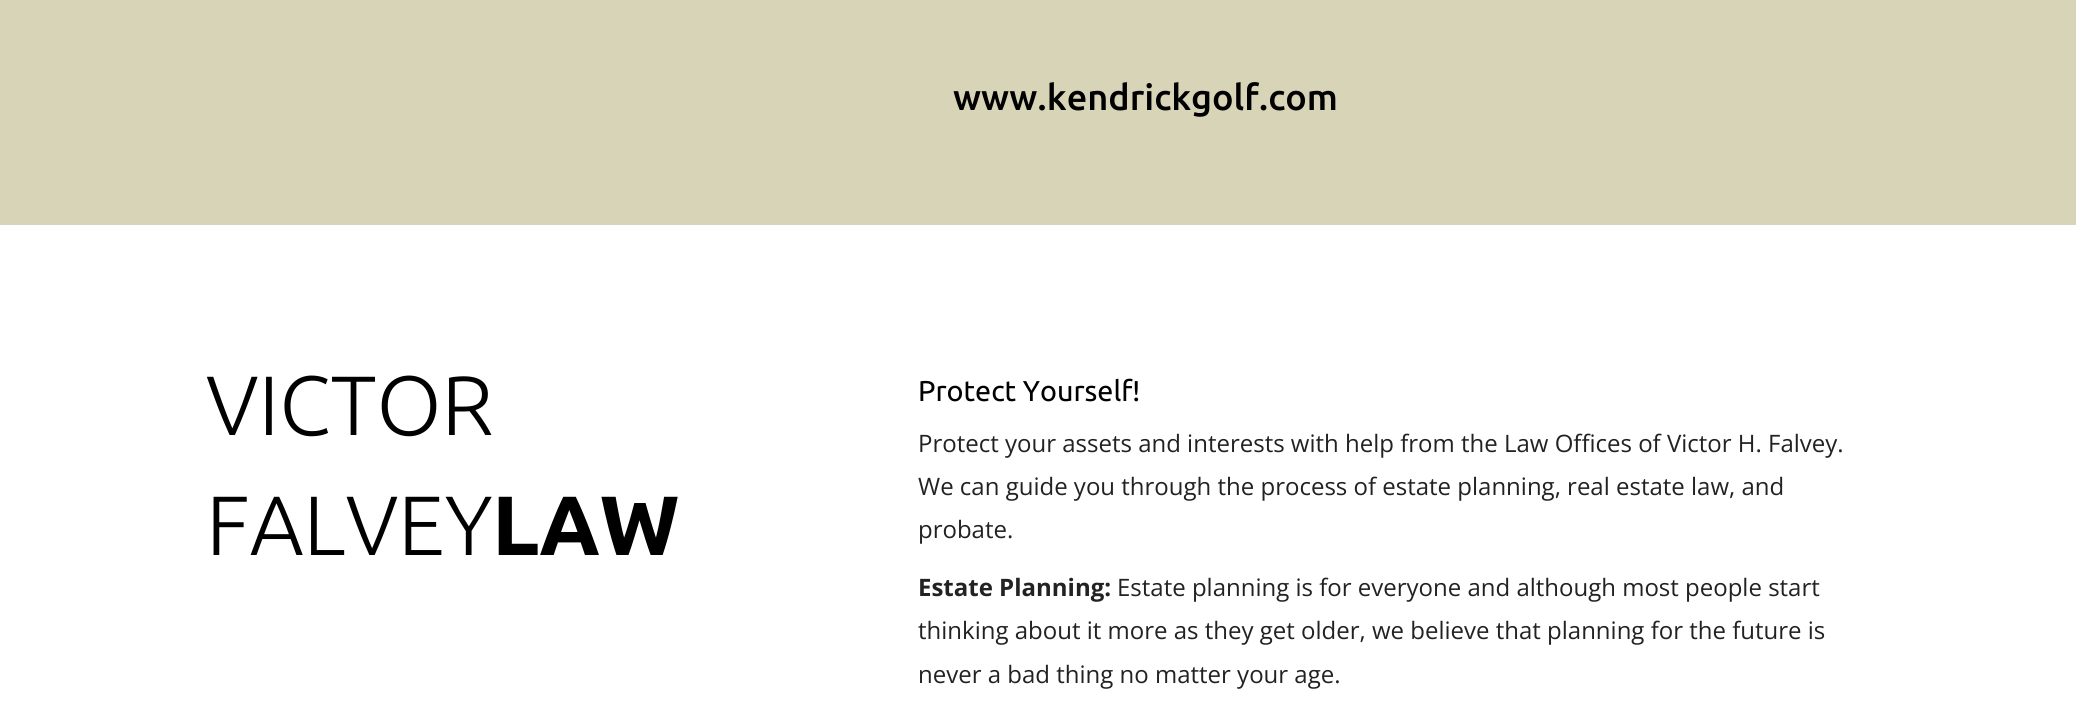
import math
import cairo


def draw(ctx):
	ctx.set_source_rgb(1, 1, 1)
	ctx.paint()
	ctx.set_source_rgb(0.847, 0.831, 0.718)
	ctx.rectangle(0, 0, 2076, 225)
	ctx.fill()
	ctx.select_font_face('Ubuntu Medium')
	ctx.set_font_size(36)
	ctx.set_source_rgb(0, 0, 0)
	ctx.move_to(953, 110)
	ctx.show_text('www.kendrickgolf.com')
	ctx.select_font_face('Ubuntu Light')
	ctx.set_font_size(84)
	ctx.move_to(206, 435)
	ctx.show_text('VICTOR')
	ctx.move_to(206, 555)
	ctx.show_text('FALVEY')
	ctx.select_font_face('Ubuntu', cairo.FONT_SLANT_NORMAL, cairo.FONT_WEIGHT_BOLD)
	ctx.move_to(492, 555)
	ctx.show_text('LAW')
	ctx.select_font_face('Ubuntu')
	ctx.set_font_size(28.75)
	ctx.move_to(918, 401)
	ctx.show_text('Protect Yourself!')
	ctx.select_font_face('Open Sans')
	ctx.set_font_size(24)
	ctx.set_source_rgb(0.133, 0.133, 0.133)
	for x, y, s in [
		(918, 452, 'Protect your assets and interests with help from the Law Offices of Victor H. Falvey.'),
		(918, 495, 'We can guide you through the process of estate planning, real estate law, and'),
		(918, 538, 'probate.'),
	]:
		ctx.move_to(x, y)
		ctx.show_text(s)
	ctx.select_font_face('Open Sans', cairo.FONT_SLANT_NORMAL, cairo.FONT_WEIGHT_BOLD)
	ctx.move_to(918, 596)
	ctx.show_text('Estate Planning:')
	ctx.select_font_face('Open Sans')
	for x, y, s in [
		(1117, 596, 'Estate planning is for everyone and although most people start'),
		(918, 639, 'thinking about it more as they get older, we believe that planning for the future is'),
		(918, 683, 'never a bad thing no matter your age.'),
	]:
		ctx.move_to(x, y)
		ctx.show_text(s)


surface = cairo.ImageSurface(cairo.FORMAT_RGB24, 2076, 714)
ctx = cairo.Context(surface)
options = cairo.FontOptions()
options.set_hint_metrics(cairo.HINT_METRICS_OFF)
options.set_hint_style(cairo.HINT_STYLE_NONE)
ctx.set_font_options(options)
ctx.set_miter_limit(4)
draw(ctx)
surface.write_to_png('image.png')
